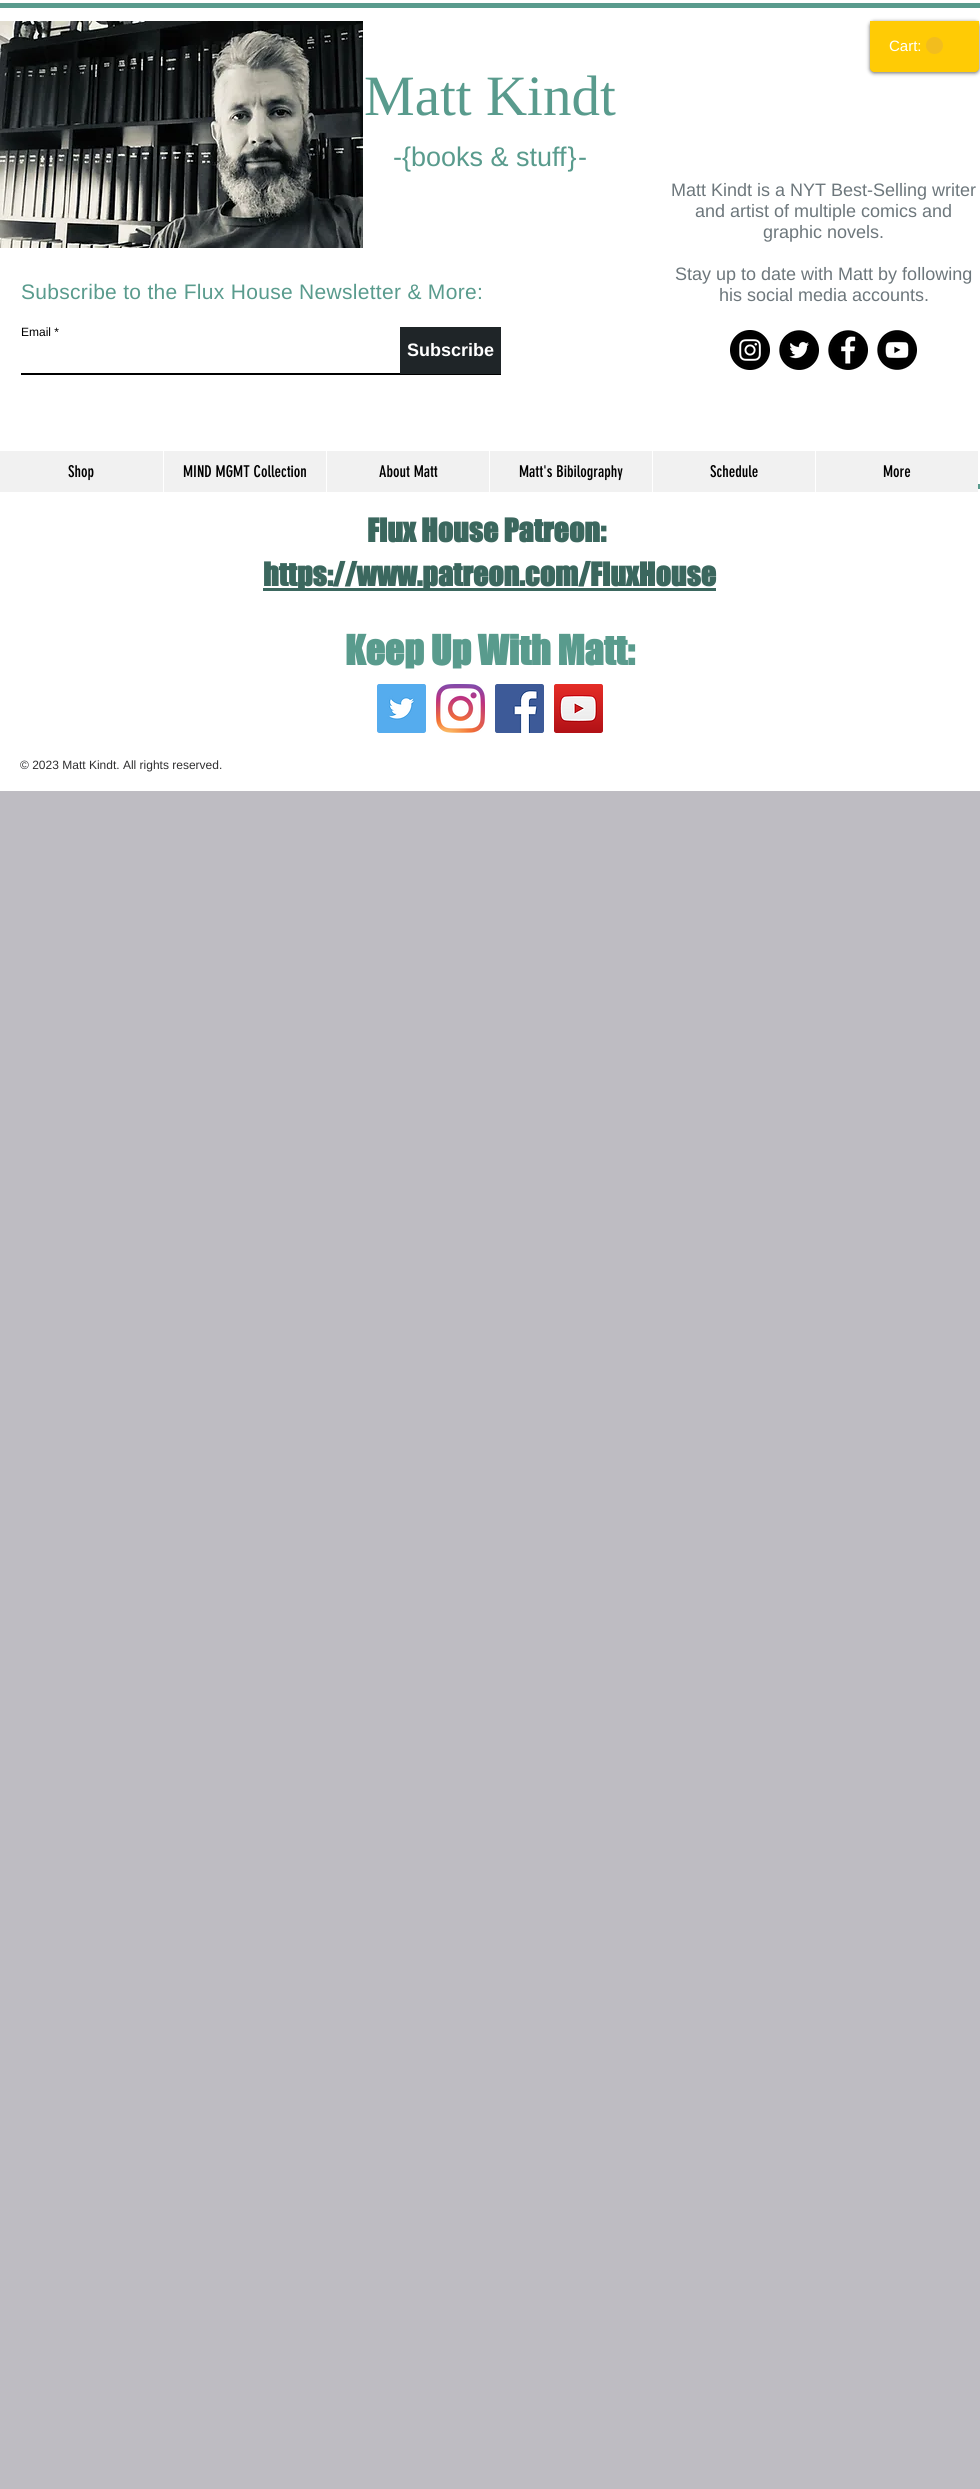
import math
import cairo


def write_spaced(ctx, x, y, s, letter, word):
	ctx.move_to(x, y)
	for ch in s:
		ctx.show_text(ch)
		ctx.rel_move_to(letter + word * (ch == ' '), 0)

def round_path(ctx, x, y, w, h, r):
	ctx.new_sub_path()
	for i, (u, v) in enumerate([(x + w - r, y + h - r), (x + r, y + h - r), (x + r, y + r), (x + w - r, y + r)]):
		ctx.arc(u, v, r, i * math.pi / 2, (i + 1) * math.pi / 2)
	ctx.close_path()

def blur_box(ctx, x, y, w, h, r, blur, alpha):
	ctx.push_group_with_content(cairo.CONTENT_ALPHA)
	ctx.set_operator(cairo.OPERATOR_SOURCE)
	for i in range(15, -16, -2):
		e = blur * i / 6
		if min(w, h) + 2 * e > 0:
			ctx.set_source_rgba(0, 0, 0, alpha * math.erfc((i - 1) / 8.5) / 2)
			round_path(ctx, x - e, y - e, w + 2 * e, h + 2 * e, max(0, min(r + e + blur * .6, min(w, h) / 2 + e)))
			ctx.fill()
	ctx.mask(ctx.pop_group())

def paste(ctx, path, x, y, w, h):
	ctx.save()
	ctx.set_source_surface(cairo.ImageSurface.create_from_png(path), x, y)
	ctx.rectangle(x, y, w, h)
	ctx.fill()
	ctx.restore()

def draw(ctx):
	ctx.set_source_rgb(0.745, 0.737, 0.761)
	ctx.paint()
	ctx.set_source_rgb(1, 1, 1)
	ctx.rectangle(0, 0, 980, 791)
	ctx.fill()
	ctx.set_source_rgb(0.349, 0.608, 0.553)
	ctx.rectangle(0, 3, 980, 5)
	ctx.rectangle(978, 484, 2, 5)
	ctx.fill()
	paste(ctx, 'media/1.png', 0, 21, 363, 227)
	ctx.set_source_rgb(0, 0, 0)
	blur_box(ctx, 870, 22, 109, 51, 4, 2, 0.6)
	ctx.set_source_rgb(1, 0.796, 0.02)
	ctx.new_path()
	ctx.move_to(870, 21)
	ctx.line_to(979, 21)
	ctx.line_to(979, 68)
	ctx.curve_to(979, 70, 977, 72, 975, 72)
	ctx.line_to(874, 72)
	ctx.curve_to(872, 72, 870, 70, 870, 68)
	ctx.close_path()
	ctx.fill()
	ctx.set_source_rgb(0.949, 0.741, 0.118)
	ctx.arc(934.5, 45.5, 8.5, 0, 2 * math.pi)
	ctx.fill()
	ctx.select_font_face('Liberation Sans')
	ctx.set_font_size(15)
	ctx.set_source_rgb(1, 1, 1)
	ctx.move_to(889, 51)
	ctx.show_text('Cart:')
	ctx.select_font_face('Liberation Serif')
	ctx.set_font_size(57)
	ctx.set_source_rgb(0.349, 0.608, 0.553)
	ctx.move_to(364, 115)
	ctx.show_text('Matt Kindt')
	ctx.select_font_face('Liberation Sans')
	ctx.set_font_size(27)
	ctx.move_to(393, 166)
	ctx.show_text('-{books & stuf')
	write_spaced(ctx, 559, 166, 'f}', 1, 0)
	ctx.move_to(578, 166)
	ctx.show_text('-')
	ctx.set_font_size(18)
	ctx.set_source_rgb(0.427, 0.467, 0.486)
	for x, y, s in [
		(671, 196, 'Matt Kindt is a NYT Best-Selling writer'),
		(695, 217, 'and artist of multiple comics and'),
		(763, 238, 'graphic novels.'),
		(675, 280, 'Stay up to date with Matt by following'),
		(719, 301, 'his social media accounts.'),
	]:
		ctx.move_to(x, y)
		ctx.show_text(s)
	ctx.set_font_size(21)
	ctx.set_source_rgb(0.349, 0.608, 0.553)
	write_spaced(ctx, 21, 299, 'Subscribe to the Flux House Newsletter & More:', 0.3, 0)
	ctx.set_font_size(12)
	ctx.set_source_rgb(0, 0, 0)
	ctx.move_to(21, 336)
	ctx.show_text('Email *')
	ctx.rectangle(21, 373, 480, 2)
	ctx.fill()
	ctx.set_source_rgb(0.122, 0.145, 0.157)
	ctx.rectangle(400, 327, 101, 47)
	ctx.fill()
	ctx.select_font_face('Liberation Sans', cairo.FONT_SLANT_NORMAL, cairo.FONT_WEIGHT_BOLD)
	ctx.set_font_size(18)
	ctx.set_source_rgb(1, 1, 1)
	ctx.move_to(407, 356)
	ctx.show_text('Subscribe')
	paste(ctx, 'media/2.png', 730, 330, 40, 40)
	paste(ctx, 'media/3.png', 779, 330, 40, 40)
	paste(ctx, 'media/4.png', 828, 330, 40, 40)
	paste(ctx, 'media/5.png', 877, 330, 40, 40)
	ctx.set_source_rgb(0.945, 0.945, 0.945)
	ctx.rectangle(0, 451, 978, 41)
	ctx.fill()
	ctx.select_font_face('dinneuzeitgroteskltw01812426')
	ctx.set_font_size(16)
	ctx.set_source_rgb(0, 0, 0)
	ctx.move_to(68, 477)
	ctx.show_text('Shop')
	ctx.set_source_rgb(1, 1, 1)
	ctx.rectangle(163, 451, 1, 41)
	ctx.fill()
	ctx.set_source_rgb(0, 0, 0)
	ctx.move_to(183, 477)
	ctx.show_text('MIND MGMT Collection')
	ctx.set_source_rgb(1, 1, 1)
	ctx.rectangle(326, 451, 1, 41)
	ctx.fill()
	ctx.set_source_rgb(0, 0, 0)
	ctx.move_to(379, 477)
	ctx.show_text('About Matt')
	ctx.set_source_rgb(1, 1, 1)
	ctx.rectangle(489, 451, 1, 41)
	ctx.fill()
	ctx.set_source_rgb(0, 0, 0)
	ctx.move_to(519, 477)
	ctx.show_text('Matt\'s Bibilography')
	ctx.set_source_rgb(1, 1, 1)
	ctx.rectangle(652, 451, 1, 41)
	ctx.fill()
	ctx.set_source_rgb(0, 0, 0)
	ctx.move_to(710, 477)
	ctx.show_text('Schedule')
	ctx.set_source_rgb(1, 1, 1)
	ctx.rectangle(815, 451, 1, 41)
	ctx.fill()
	ctx.set_source_rgb(0, 0, 0)
	ctx.move_to(883, 477)
	ctx.show_text('More')
	ctx.select_font_face('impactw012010', cairo.FONT_SLANT_NORMAL, cairo.FONT_WEIGHT_BOLD)
	ctx.set_font_size(30)
	ctx.set_source_rgb(0.231, 0.404, 0.369)
	ctx.move_to(367, 542)
	ctx.show_text('Flux House Patreon:')
	ctx.rectangle(263, 588, 453, 3)
	ctx.fill()
	ctx.move_to(263, 586)
	ctx.show_text('https://www.patreon.com/FluxHouse')
	ctx.set_font_size(38)
	ctx.set_source_rgb(0.349, 0.608, 0.553)
	ctx.move_to(345, 665)
	ctx.show_text('Keep Up With Matt:')
	paste(ctx, 'media/6.png', 377, 684, 49, 49)
	paste(ctx, 'media/7.png', 436, 684, 49, 49)
	paste(ctx, 'media/8.png', 495, 684, 49, 49)
	paste(ctx, 'media/9.png', 554, 684, 49, 49)
	ctx.select_font_face('Liberation Sans')
	ctx.set_font_size(12)
	ctx.set_source_rgb(0.184, 0.184, 0.188)
	ctx.move_to(20, 769)
	ctx.show_text('© 2023 Matt Kindt. All rights reserved.')


surface = cairo.ImageSurface(cairo.FORMAT_RGB24, 980, 2489)
ctx = cairo.Context(surface)
options = cairo.FontOptions()
options.set_hint_metrics(cairo.HINT_METRICS_OFF)
options.set_hint_style(cairo.HINT_STYLE_NONE)
ctx.set_font_options(options)
ctx.set_miter_limit(4)
draw(ctx)
surface.write_to_png('image.png')
